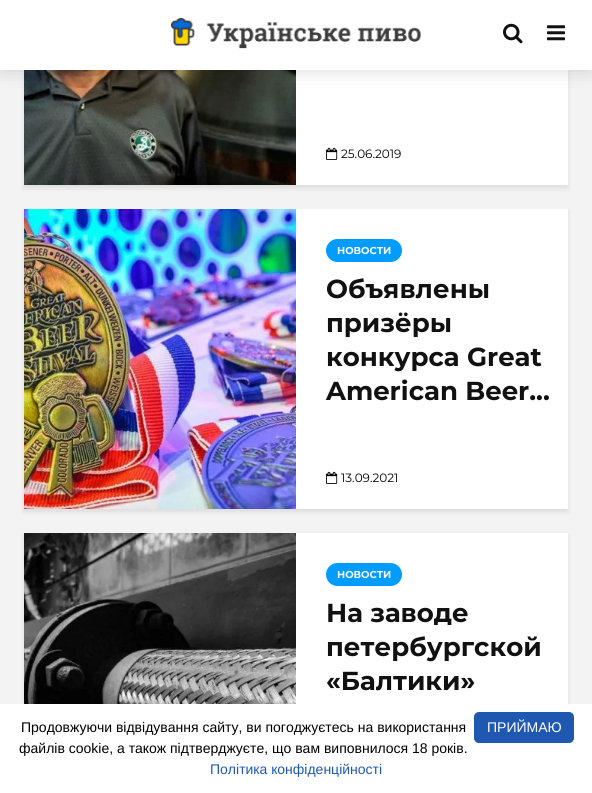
import math
import cairo


def round_path(ctx, x, y, w, h, r):
	ctx.new_sub_path()
	for i, (u, v) in enumerate([(x + w - r, y + h - r), (x + r, y + h - r), (x + r, y + r), (x + w - r, y + r)]):
		ctx.arc(u, v, r, i * math.pi / 2, (i + 1) * math.pi / 2)
	ctx.close_path()

def blur_box(ctx, x, y, w, h, r, blur, alpha):
	ctx.push_group_with_content(cairo.CONTENT_ALPHA)
	ctx.set_operator(cairo.OPERATOR_SOURCE)
	for i in range(15, -16, -2):
		e = blur * i / 6
		if min(w, h) + 2 * e > 0:
			ctx.set_source_rgba(0, 0, 0, alpha * math.erfc((i - 1) / 8.5) / 2)
			round_path(ctx, x - e, y - e, w + 2 * e, h + 2 * e, max(0, min(r + e + blur * .6, min(w, h) / 2 + e)))
			ctx.fill()
	ctx.mask(ctx.pop_group())

def paste(ctx, path, x, y, w, h):
	ctx.save()
	ctx.set_source_surface(cairo.ImageSurface.create_from_png(path), x, y)
	ctx.rectangle(x, y, w, h)
	ctx.fill()
	ctx.restore()

def draw(ctx):
	ctx.set_source_rgb(0.953, 0.953, 0.953)
	ctx.paint()
	ctx.set_source_rgb(0, 0.004, 0.004)
	blur_box(ctx, 24, -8, 544, 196, 0, 2.5, 0.1)
	ctx.set_source_rgb(1, 1, 1)
	ctx.rectangle(296, 70, 272, 115)
	ctx.fill()
	paste(ctx, 'media/4.png', 24, 70, 272, 115)
	ctx.set_source_rgb(0, 0, 0)
	blur_box(ctx, 0, 0, 592, 70, 0, 10, 0.15)
	ctx.set_source_rgb(1, 1, 1)
	ctx.rectangle(0, 0, 592, 70)
	ctx.fill()
	paste(ctx, 'media/1.png', 171, 18, 250, 31)
	paste(ctx, 'media/2.png', 503, 23, 20, 21)
	paste(ctx, 'media/3.png', 547, 25, 18, 16)
	paste(ctx, 'media/5.png', 326, 147, 12, 13)
	ctx.select_font_face('Montserrat')
	ctx.set_font_size(12)
	ctx.set_source_rgb(0, 0, 0)
	ctx.move_to(341, 158)
	ctx.show_text('25.06.2019')
	ctx.set_source_rgb(0, 0.004, 0.004)
	blur_box(ctx, 24, 212, 544, 300, 0, 2.5, 0.1)
	ctx.set_source_rgb(1, 1, 1)
	ctx.rectangle(296, 209, 272, 300)
	ctx.fill()
	paste(ctx, 'media/6.png', 24, 209, 272, 300)
	ctx.set_source_rgb(0, 0.612, 1)
	round_path(ctx, 326, 239, 76, 23, 11.5)
	ctx.fill()
	ctx.select_font_face('Montserrat', cairo.FONT_SLANT_NORMAL, cairo.FONT_WEIGHT_BOLD)
	ctx.set_font_size(10)
	ctx.set_source_rgb(1, 1, 1)
	ctx.move_to(337, 254)
	ctx.show_text('НОВОСТИ')
	ctx.set_font_size(26)
	ctx.set_source_rgb(0.067, 0.067, 0.067)
	for x, y, s in [
		(326, 298, 'Объявлены'),
		(326, 332, 'призёры'),
		(326, 366, 'конкурса Great'),
		(326, 400, 'American Beer...'),
	]:
		ctx.move_to(x, y)
		ctx.show_text(s)
	paste(ctx, 'media/5.png', 326, 471, 12, 13)
	ctx.select_font_face('Montserrat')
	ctx.set_font_size(12)
	ctx.set_source_rgb(0, 0, 0)
	ctx.move_to(341, 482)
	ctx.show_text('13.09.2021')
	ctx.set_source_rgb(0, 0.004, 0.004)
	blur_box(ctx, 24, 536, 544, 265, 0, 2.5, 0.1)
	ctx.set_source_rgb(1, 1, 1)
	ctx.rectangle(296, 533, 272, 171)
	ctx.fill()
	paste(ctx, 'media/7.png', 24, 533, 272, 171)
	ctx.set_source_rgb(0, 0.612, 1)
	round_path(ctx, 326, 563, 76, 23, 11.5)
	ctx.fill()
	ctx.select_font_face('Montserrat', cairo.FONT_SLANT_NORMAL, cairo.FONT_WEIGHT_BOLD)
	ctx.set_font_size(10)
	ctx.set_source_rgb(1, 1, 1)
	ctx.move_to(337, 578)
	ctx.show_text('НОВОСТИ')
	ctx.set_font_size(26)
	ctx.set_source_rgb(0.067, 0.067, 0.067)
	for x, y, s in [
		(326, 622, 'На заводе'),
		(326, 656, 'петербургской'),
		(326, 690, '«Балтики»'),
	]:
		ctx.move_to(x, y)
		ctx.show_text(s)
	ctx.set_source_rgb(1, 1, 1)
	ctx.rectangle(0, 704, 592, 89)
	ctx.fill()
	ctx.select_font_face('Liberation Sans')
	ctx.set_font_size(14)
	ctx.set_source_rgb(0, 0, 0)
	ctx.move_to(21, 732)
	ctx.show_text('Продовжуючи відвідування сайту, ви погоджуєтесь на використання')
	ctx.move_to(19, 753)
	ctx.show_text('файлів cookie, а також підтверджуєте, що вам виповнилося 18 років.')
	ctx.set_source_rgb(0.118, 0.345, 0.694)
	ctx.move_to(210, 774)
	ctx.show_text('Політика конфіденційності')
	round_path(ctx, 474, 712, 100, 31, 5)
	ctx.fill()
	ctx.set_source_rgb(1, 1, 1)
	ctx.move_to(487, 732)
	ctx.show_text('ПРИЙМАЮ')


surface = cairo.ImageSurface(cairo.FORMAT_RGB24, 592, 793)
ctx = cairo.Context(surface)
options = cairo.FontOptions()
options.set_hint_metrics(cairo.HINT_METRICS_OFF)
options.set_hint_style(cairo.HINT_STYLE_NONE)
ctx.set_font_options(options)
ctx.set_miter_limit(4)
draw(ctx)
surface.write_to_png('image.png')
